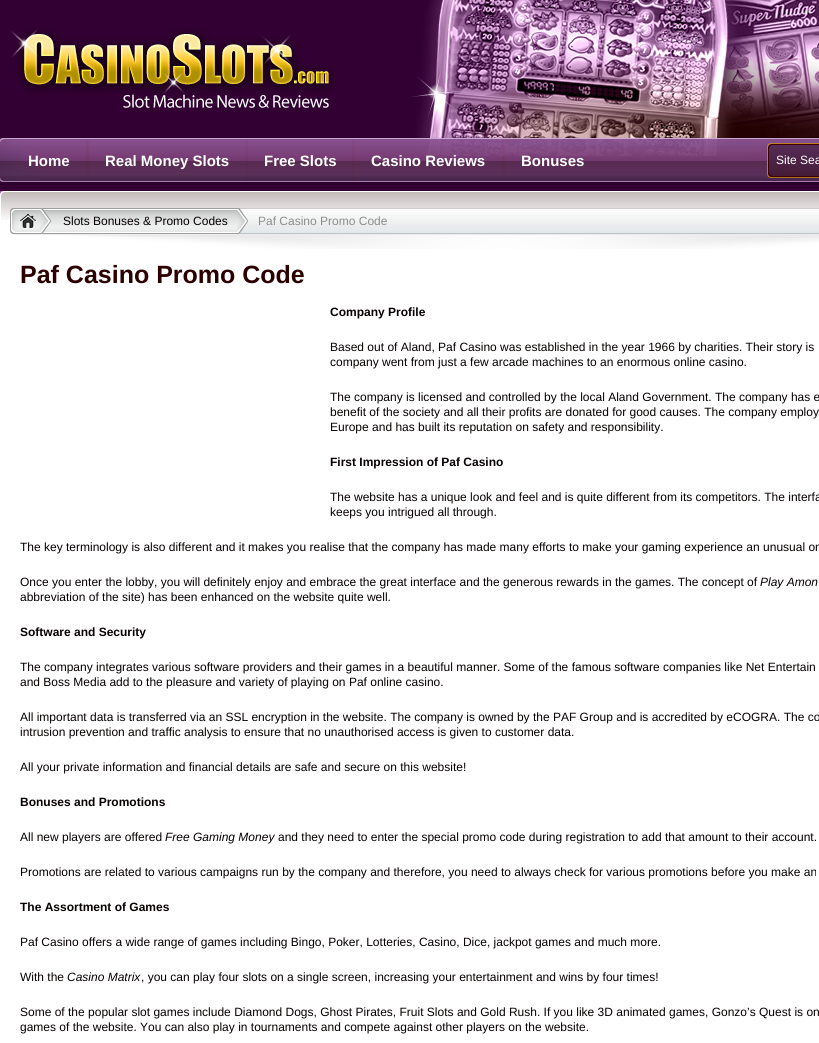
import math
import cairo


def paste(ctx, path, x, y, w, h):
	ctx.save()
	ctx.set_source_surface(cairo.ImageSurface.create_from_png(path), x, y)
	ctx.rectangle(x, y, w, h)
	ctx.fill()
	ctx.restore()

def draw(ctx):
	ctx.set_source_rgb(0.2, 0, 0.2)
	ctx.paint()
	paste(ctx, 'media/1.png', 411, 0, 408, 156)
	paste(ctx, 'media/2.png', 10, 28, 326, 80)
	paste(ctx, 'media/3.png', 0, 137, 819, 48)
	ctx.select_font_face('Liberation Sans', cairo.FONT_SLANT_NORMAL, cairo.FONT_WEIGHT_BOLD)
	ctx.set_font_size(15)
	ctx.set_source_rgb(1, 1, 1)
	ctx.move_to(28, 166)
	ctx.show_text('Home')
	ctx.set_source_rgba(0.427, 0, 0, 0.05)
	ctx.rectangle(86, 140, 3, 41)
	ctx.fill()
	ctx.set_source_rgb(1, 1, 1)
	ctx.move_to(105, 166)
	ctx.show_text('Real Money Slots')
	ctx.set_source_rgba(0.427, 0, 0, 0.05)
	ctx.rectangle(245, 140, 3, 41)
	ctx.fill()
	ctx.set_source_rgb(1, 1, 1)
	ctx.move_to(264, 166)
	ctx.show_text('Free Slots')
	ctx.set_source_rgba(0.427, 0, 0, 0.05)
	ctx.rectangle(352, 140, 3, 41)
	ctx.fill()
	ctx.set_source_rgb(1, 1, 1)
	ctx.move_to(371, 166)
	ctx.show_text('Casino Reviews')
	ctx.set_source_rgba(0.427, 0, 0, 0.05)
	ctx.rectangle(502, 140, 3, 41)
	ctx.fill()
	ctx.set_source_rgb(1, 1, 1)
	ctx.move_to(521, 166)
	ctx.show_text('Bonuses')
	paste(ctx, 'media/4.png', 767, 143, 52, 35)
	ctx.select_font_face('Liberation Sans')
	ctx.set_font_size(12)
	ctx.move_to(776, 164)
	ctx.show_text('Site Sea')
	ctx.rectangle(0, 220, 819, 823)
	ctx.fill()
	paste(ctx, 'media/5.png', 0, 191, 819, 29)
	paste(ctx, 'media/6.png', 10, 208, 809, 41)
	paste(ctx, 'media/7.png', 10, 208, 41, 26)
	paste(ctx, 'media/8.png', 40, 209, 11, 25)
	paste(ctx, 'media/9.png', 20, 214, 17, 15)
	paste(ctx, 'media/10.png', 51, 208, 186, 26)
	paste(ctx, 'media/11.png', 237, 208, 11, 26)
	ctx.set_source_rgb(0.024, 0, 0)
	ctx.move_to(63, 225)
	ctx.show_text('Slots Bonuses & Promo Codes')
	ctx.set_source_rgb(0.553, 0.553, 0.553)
	ctx.move_to(258, 225)
	ctx.show_text('Paf Casino Promo Code')
	ctx.select_font_face('Liberation Sans', cairo.FONT_SLANT_NORMAL, cairo.FONT_WEIGHT_BOLD)
	ctx.set_font_size(25)
	ctx.set_source_rgb(0.173, 0, 0)
	ctx.move_to(20, 283)
	ctx.show_text('Paf Casino Promo Code')
	ctx.set_font_size(12)
	ctx.set_source_rgb(0.024, 0, 0)
	ctx.move_to(330, 316)
	ctx.show_text('Company Profile')
	ctx.select_font_face('Liberation Sans')
	for x, y, s in [
		(330, 351, 'Based out of Aland, Paf Casino was established in the year 1966 by charities. Their story is'),
		(330, 366, 'company went from just a few arcade machines to an enormous online casino.'),
		(330, 401, 'The company is licensed and controlled by the local Aland Government. The company has e'),
		(330, 416, 'benefit of the society and all their profits are donated for good causes. The company employ'),
		(330, 431, 'Europe and has built its reputation on safety and responsibility.'),
	]:
		ctx.move_to(x, y)
		ctx.show_text(s)
	ctx.select_font_face('Liberation Sans', cairo.FONT_SLANT_NORMAL, cairo.FONT_WEIGHT_BOLD)
	ctx.move_to(330, 466)
	ctx.show_text('First Impression of Paf Casino')
	ctx.select_font_face('Liberation Sans')
	for x, y, s in [
		(330, 501, 'The website has a unique look and feel and is quite different from its competitors. The interfa'),
		(330, 516, 'keeps you intrigued all through.'),
		(20, 551, 'The key terminology is also different and it makes you realise that the company has made many efforts to make your gaming experience an unusual on'),
		(20, 586, 'Once you enter the lobby, you will definitely enjoy and embrace the great interface and the generous rewards in the games. The concept of'),
	]:
		ctx.move_to(x, y)
		ctx.show_text(s)
	ctx.select_font_face('Liberation Sans', cairo.FONT_SLANT_ITALIC)
	ctx.move_to(760, 586)
	ctx.show_text('Play Amon')
	ctx.select_font_face('Liberation Sans')
	ctx.move_to(20, 601)
	ctx.show_text('abbreviation of the site) has been enhanced on the website quite well.')
	ctx.select_font_face('Liberation Sans', cairo.FONT_SLANT_NORMAL, cairo.FONT_WEIGHT_BOLD)
	ctx.move_to(20, 636)
	ctx.show_text('Software and Security')
	ctx.select_font_face('Liberation Sans')
	for x, y, s in [
		(20, 671, 'The company integrates various software providers and their games in a beautiful manner. Some of the famous software companies like Net Entertain'),
		(20, 686, 'and Boss Media add to the pleasure and variety of playing on Paf online casino.'),
		(20, 721, 'All important data is transferred via an SSL encryption in the website. The company is owned by the PAF Group and is accredited by eCOGRA. The co'),
		(20, 736, 'intrusion prevention and traffic analysis to ensure that no unauthorised access is given to customer data.'),
		(20, 771, 'All your private information and financial details are safe and secure on this website!'),
	]:
		ctx.move_to(x, y)
		ctx.show_text(s)
	ctx.select_font_face('Liberation Sans', cairo.FONT_SLANT_NORMAL, cairo.FONT_WEIGHT_BOLD)
	ctx.move_to(20, 806)
	ctx.show_text('Bonuses and Promotions')
	ctx.select_font_face('Liberation Sans')
	ctx.move_to(20, 841)
	ctx.show_text('All new players are offered')
	ctx.select_font_face('Liberation Sans', cairo.FONT_SLANT_ITALIC)
	ctx.move_to(165, 841)
	ctx.show_text('Free Gaming Money')
	ctx.select_font_face('Liberation Sans')
	ctx.move_to(278, 841)
	ctx.show_text('and they need to enter the special promo code during registration to add that amount to their account.')
	ctx.move_to(20, 876)
	ctx.show_text('Promotions are related to various campaigns run by the company and therefore, you need to always check for various promotions before you make an')
	ctx.select_font_face('Liberation Sans', cairo.FONT_SLANT_NORMAL, cairo.FONT_WEIGHT_BOLD)
	ctx.move_to(20, 911)
	ctx.show_text('The Assortment of Games')
	ctx.select_font_face('Liberation Sans')
	ctx.move_to(20, 946)
	ctx.show_text('Paf Casino offers a wide range of games including Bingo, Poker, Lotteries, Casino, Dice, jackpot games and much more.')
	ctx.move_to(20, 981)
	ctx.show_text('With the')
	ctx.select_font_face('Liberation Sans', cairo.FONT_SLANT_ITALIC)
	ctx.move_to(67, 981)
	ctx.show_text('Casino Matrix')
	ctx.select_font_face('Liberation Sans')
	for x, y, s in [
		(141, 981, ', you can play four slots on a single screen, increasing your entertainment and wins by four times!'),
		(20, 1016, 'Some of the popular slot games include Diamond Dogs, Ghost Pirates, Fruit Slots and Gold Rush. If you like 3D animated games, Gonzo’s Quest is on'),
		(20, 1031, 'games of the website. You can also play in tournaments and compete against other players on the website.'),
	]:
		ctx.move_to(x, y)
		ctx.show_text(s)


surface = cairo.ImageSurface(cairo.FORMAT_RGB24, 819, 1043)
ctx = cairo.Context(surface)
options = cairo.FontOptions()
options.set_hint_metrics(cairo.HINT_METRICS_OFF)
options.set_hint_style(cairo.HINT_STYLE_NONE)
ctx.set_font_options(options)
ctx.set_miter_limit(4)
draw(ctx)
surface.write_to_png('image.png')
